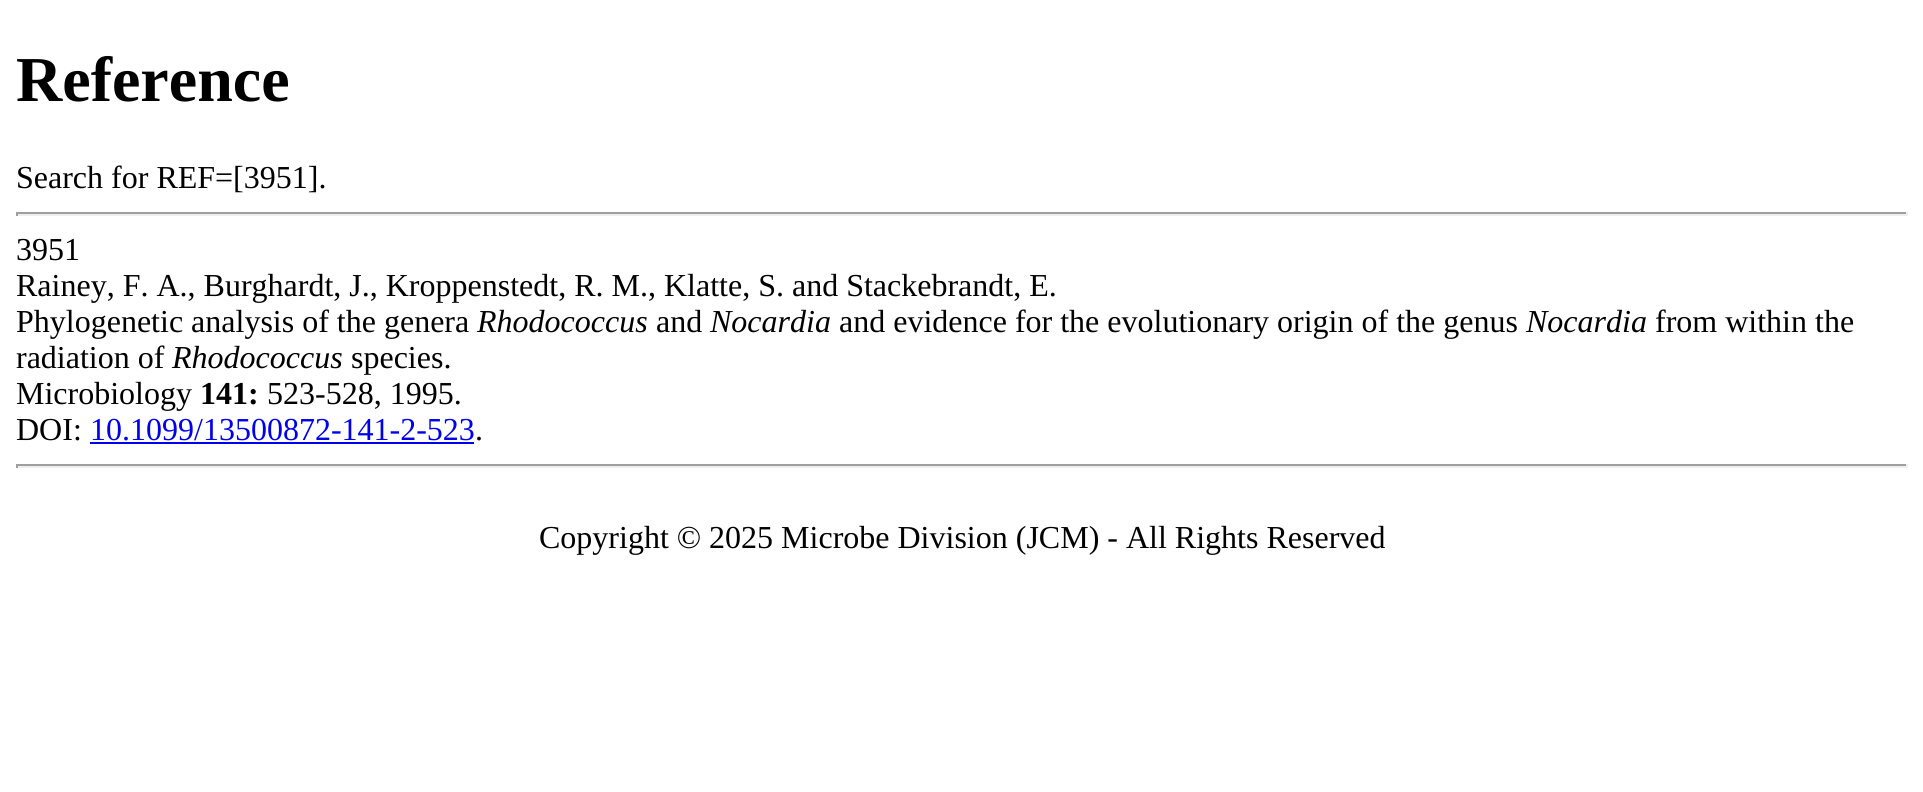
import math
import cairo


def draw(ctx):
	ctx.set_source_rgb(1, 1, 1)
	ctx.paint()
	ctx.select_font_face('Liberation Serif', cairo.FONT_SLANT_NORMAL, cairo.FONT_WEIGHT_BOLD)
	ctx.set_font_size(64)
	ctx.set_source_rgb(0, 0, 0)
	ctx.move_to(16, 101)
	ctx.show_text('Reference')
	ctx.select_font_face('Liberation Serif')
	ctx.set_font_size(32)
	ctx.move_to(16, 188)
	ctx.show_text('Search for REF=[3951].')
	ctx.set_source_rgb(0.624, 0.624, 0.624)
	ctx.rectangle(16, 212, 1892, 2)
	ctx.fill()
	ctx.set_source_rgb(0.933, 0.933, 0.933)
	ctx.rectangle(1906, 212, 2, 4)
	ctx.rectangle(16, 214, 1892, 2)
	ctx.fill()
	ctx.set_source_rgb(0.624, 0.624, 0.624)
	ctx.rectangle(16, 212, 2, 4)
	ctx.fill()
	ctx.set_source_rgb(0, 0, 0)
	for x, y, s in [
		(16, 260, '3951'),
		(16, 296, 'Rainey, F. A., Burghardt, J., Kroppenstedt, R. M., Klatte, S. and Stackebrandt, E.'),
		(16, 332, 'Phylogenetic analysis of the genera'),
	]:
		ctx.move_to(x, y)
		ctx.show_text(s)
	ctx.select_font_face('Liberation Serif', cairo.FONT_SLANT_ITALIC)
	ctx.move_to(477, 332)
	ctx.show_text('Rhodococcus')
	ctx.select_font_face('Liberation Serif')
	ctx.move_to(656, 332)
	ctx.show_text('and')
	ctx.select_font_face('Liberation Serif', cairo.FONT_SLANT_ITALIC)
	ctx.move_to(710, 332)
	ctx.show_text('Nocardia')
	ctx.select_font_face('Liberation Serif')
	ctx.move_to(839, 332)
	ctx.show_text('and evidence for the evolutionary origin of the genus')
	ctx.select_font_face('Liberation Serif', cairo.FONT_SLANT_ITALIC)
	ctx.move_to(1526, 332)
	ctx.show_text('Nocardia')
	ctx.select_font_face('Liberation Serif')
	ctx.move_to(1655, 332)
	ctx.show_text('from within the')
	ctx.move_to(16, 368)
	ctx.show_text('radiation of')
	ctx.select_font_face('Liberation Serif', cairo.FONT_SLANT_ITALIC)
	ctx.move_to(172, 368)
	ctx.show_text('Rhodococcus')
	ctx.select_font_face('Liberation Serif')
	ctx.move_to(351, 368)
	ctx.show_text('species.')
	ctx.move_to(16, 404)
	ctx.show_text('Microbiology')
	ctx.select_font_face('Liberation Serif', cairo.FONT_SLANT_NORMAL, cairo.FONT_WEIGHT_BOLD)
	ctx.move_to(200, 404)
	ctx.show_text('141:')
	ctx.select_font_face('Liberation Serif')
	ctx.move_to(267, 404)
	ctx.show_text('523-528, 1995.')
	ctx.move_to(16, 440)
	ctx.show_text('DOI:')
	ctx.set_source_rgb(0, 0, 0.933)
	ctx.move_to(90, 440)
	ctx.show_text('10.1099/13500872-141-2-523')
	ctx.rectangle(90, 442, 384, 2)
	ctx.fill()
	ctx.set_source_rgb(0, 0, 0)
	ctx.move_to(475, 440)
	ctx.show_text('.')
	ctx.set_source_rgb(0.624, 0.624, 0.624)
	ctx.rectangle(16, 464, 1892, 2)
	ctx.fill()
	ctx.set_source_rgb(0.933, 0.933, 0.933)
	ctx.rectangle(1906, 464, 2, 4)
	ctx.rectangle(16, 466, 1892, 2)
	ctx.fill()
	ctx.set_source_rgb(0.624, 0.624, 0.624)
	ctx.rectangle(16, 464, 2, 4)
	ctx.fill()
	ctx.set_source_rgb(0, 0, 0)
	ctx.move_to(539, 548)
	ctx.show_text('Copyright © 2025 Microbe Division (JCM) - All Rights Reserved')


surface = cairo.ImageSurface(cairo.FORMAT_RGB24, 1923, 792)
ctx = cairo.Context(surface)
options = cairo.FontOptions()
options.set_hint_metrics(cairo.HINT_METRICS_OFF)
options.set_hint_style(cairo.HINT_STYLE_NONE)
ctx.set_font_options(options)
ctx.set_miter_limit(4)
draw(ctx)
surface.write_to_png('image.png')
